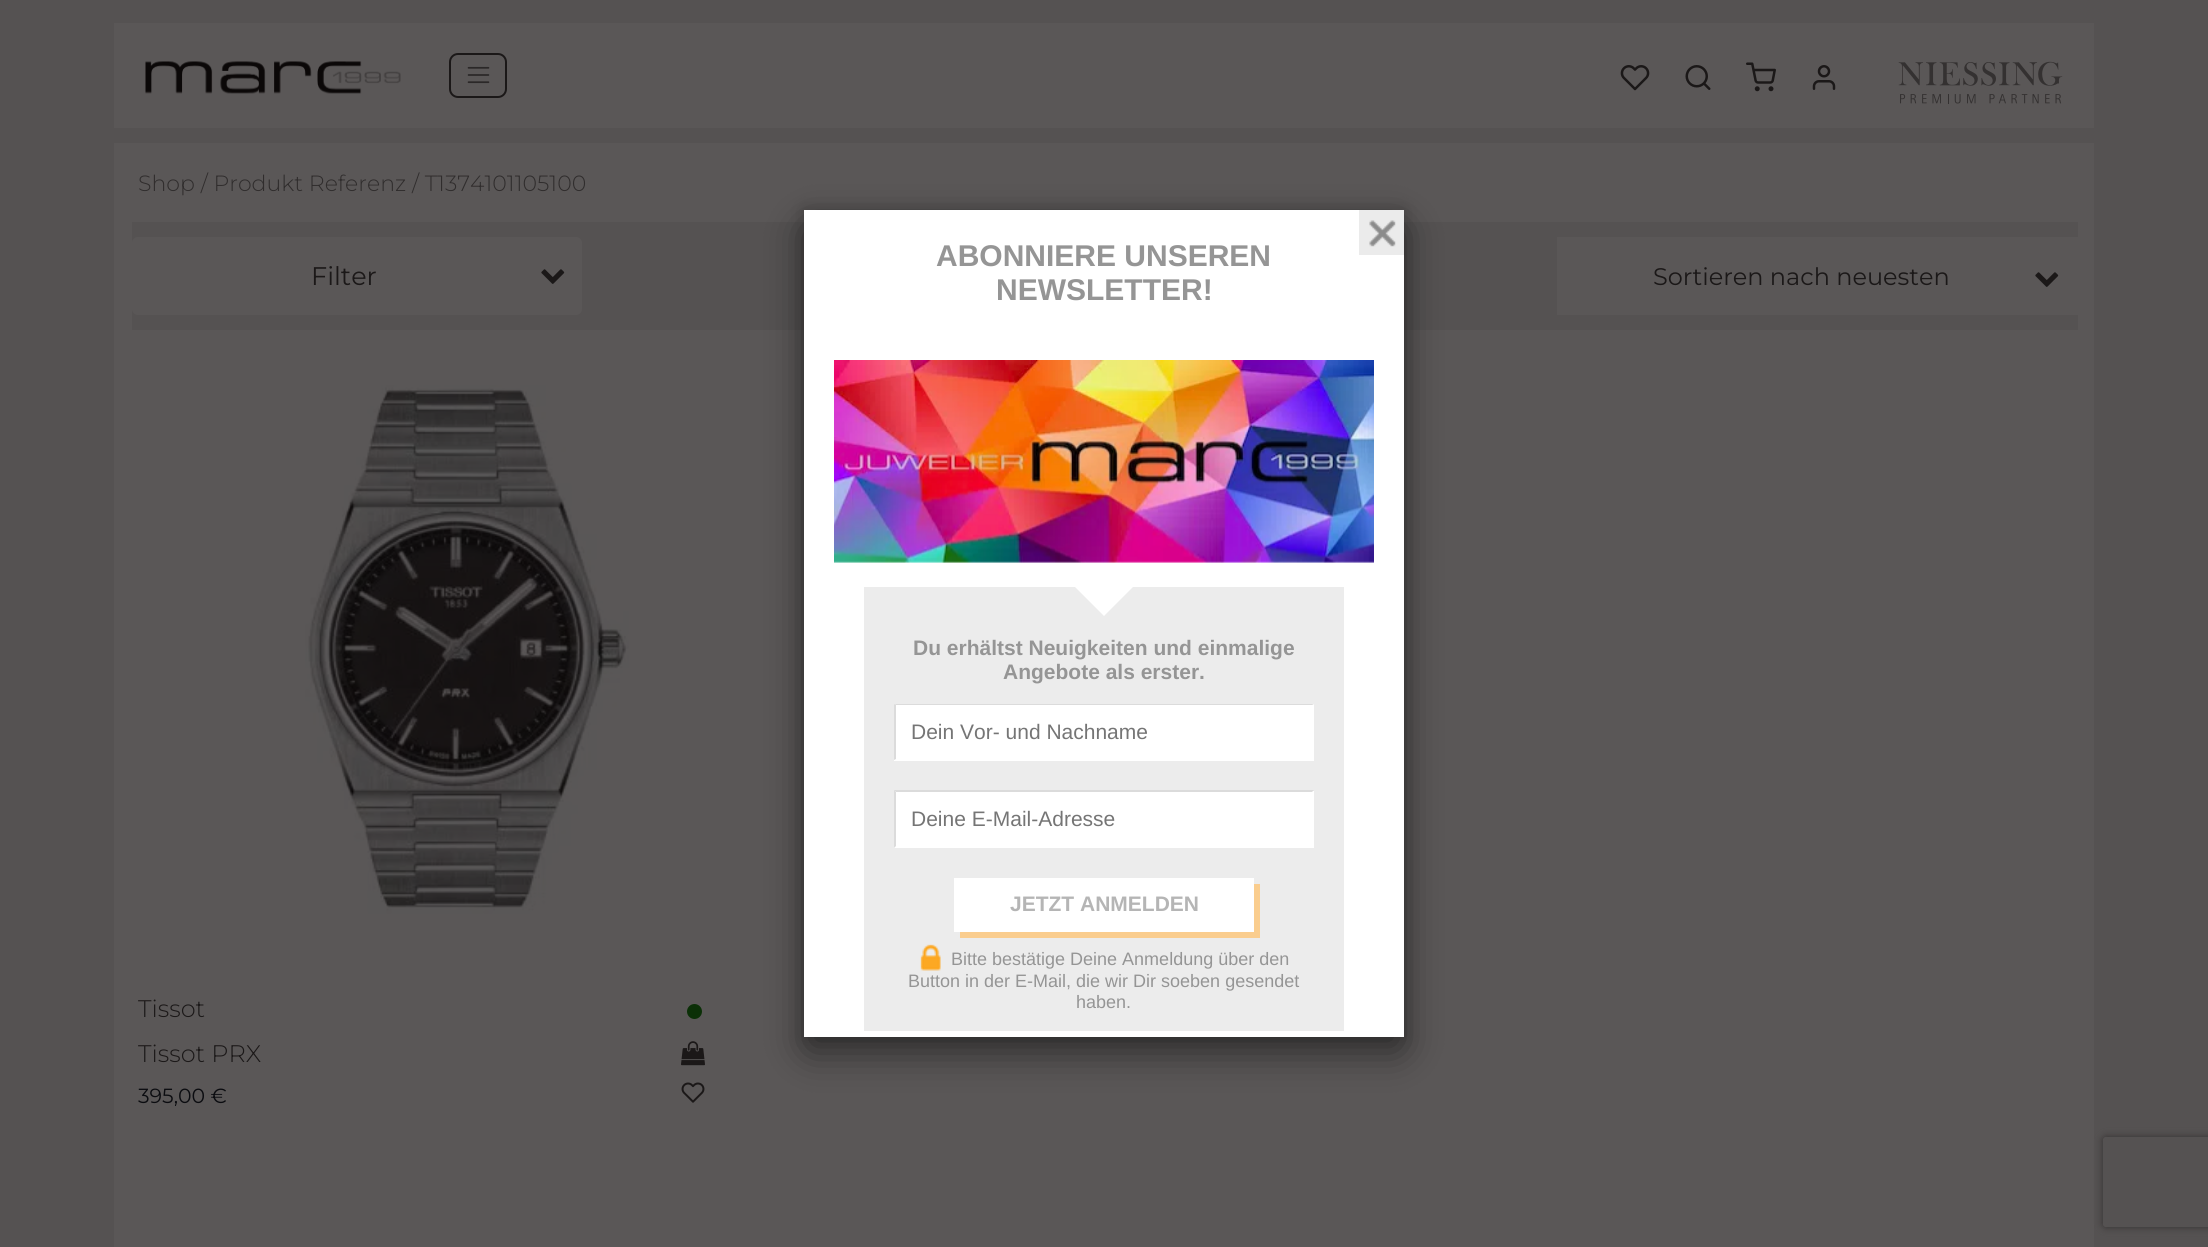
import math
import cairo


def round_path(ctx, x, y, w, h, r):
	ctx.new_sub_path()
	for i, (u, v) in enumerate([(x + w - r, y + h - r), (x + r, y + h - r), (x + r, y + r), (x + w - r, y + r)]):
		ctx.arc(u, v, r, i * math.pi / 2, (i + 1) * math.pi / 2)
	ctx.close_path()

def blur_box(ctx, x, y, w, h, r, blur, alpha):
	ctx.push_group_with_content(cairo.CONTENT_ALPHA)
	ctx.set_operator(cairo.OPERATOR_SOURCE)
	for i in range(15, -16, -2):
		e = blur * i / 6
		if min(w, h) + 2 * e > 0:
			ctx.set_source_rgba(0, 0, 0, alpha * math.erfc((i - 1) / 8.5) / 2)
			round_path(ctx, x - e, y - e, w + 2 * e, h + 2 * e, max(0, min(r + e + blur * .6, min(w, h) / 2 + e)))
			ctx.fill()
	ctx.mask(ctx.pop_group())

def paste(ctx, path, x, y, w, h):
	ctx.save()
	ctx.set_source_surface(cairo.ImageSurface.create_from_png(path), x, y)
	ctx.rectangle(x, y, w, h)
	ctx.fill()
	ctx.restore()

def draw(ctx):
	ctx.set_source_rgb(0.333, 0.322, 0.322)
	ctx.paint()
	ctx.set_source_rgb(0.353, 0.341, 0.341)
	ctx.rectangle(114, 23, 1980, 105)
	ctx.fill()
	paste(ctx, 'media/1.png', 145, 61, 256, 33)
	round_path(ctx, 450, 54, 56, 43, 8)
	ctx.set_source_rgb(0.106, 0.094, 0.094)
	ctx.stroke()
	paste(ctx, 'media/2.png', 467, 66, 23, 18)
	paste(ctx, 'media/3.png', 1620, 65, 30, 26)
	paste(ctx, 'media/4.png', 1685, 65, 26, 25)
	paste(ctx, 'media/5.png', 1746, 62, 30, 30)
	paste(ctx, 'media/6.png', 1812, 65, 24, 25)
	paste(ctx, 'media/7.png', 1898, 61, 165, 43)
	ctx.set_source_rgb(0.353, 0.341, 0.341)
	ctx.rectangle(114, 143, 1980, 1104)
	ctx.fill()
	ctx.select_font_face('Montserrat Thin')
	ctx.set_font_size(22.1)
	ctx.set_source_rgb(0.188, 0.176, 0.176)
	ctx.move_to(138, 191)
	ctx.show_text('Shop / Produkt Referenz / T1374101105100')
	ctx.set_source_rgb(0.333, 0.322, 0.322)
	ctx.rectangle(132, 222, 1946, 108)
	ctx.fill()
	ctx.set_source_rgb(0.353, 0.341, 0.341)
	round_path(ctx, 132, 237, 450, 78, 6)
	ctx.fill()
	ctx.select_font_face('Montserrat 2 Thin')
	ctx.set_font_size(25.5)
	ctx.set_source_rgb(0.106, 0.094, 0.094)
	ctx.move_to(311, 285)
	ctx.show_text('Filter')
	paste(ctx, 'media/8.png', 541, 269, 24, 15)
	ctx.set_source_rgb(0.353, 0.341, 0.341)
	ctx.rectangle(1557, 237, 521, 78)
	ctx.fill()
	ctx.set_font_size(24)
	ctx.set_source_rgb(0.106, 0.094, 0.094)
	ctx.move_to(1653, 285)
	ctx.show_text('Sortieren nach neuesten')
	paste(ctx, 'media/8.png', 2035, 272, 24, 15)
	paste(ctx, 'media/9.png', 305, 385, 324, 529)
	ctx.select_font_face('Montserrat Thin')
	ctx.move_to(138, 1017)
	ctx.show_text('Tissot')
	ctx.move_to(138, 1062)
	ctx.show_text('Tissot PRX')
	ctx.select_font_face('Montserrat 2 Thin')
	ctx.set_font_size(20.5)
	ctx.set_source_rgb(0.043, 0.047, 0.063)
	ctx.move_to(138, 1103)
	ctx.show_text('395,00 €')
	ctx.set_source_rgb(0.043, 0.188, 0.031)
	ctx.new_path()
	ctx.arc(694.5, 1011.5, 7.5, 0, 2 * math.pi)
	ctx.fill()
	paste(ctx, 'media/10.png', 681, 1041, 24, 25)
	paste(ctx, 'media/11.png', 681, 1082, 24, 21)
	ctx.set_source_rgb(0, 0, 0)
	blur_box(ctx, 804, 225, 600, 827, 6, 19, 0.5)
	blur_box(ctx, 804, 210, 600, 827, 0, 7.5, 0.2)
	ctx.set_source_rgb(1, 1, 1)
	ctx.rectangle(804, 210, 600, 827)
	ctx.fill()
	paste(ctx, 'media/12.png', 1359, 210, 45, 45)
	ctx.select_font_face('Liberation Sans', cairo.FONT_SLANT_NORMAL, cairo.FONT_WEIGHT_BOLD)
	ctx.set_font_size(30)
	ctx.set_source_rgb(0.584, 0.584, 0.584)
	ctx.move_to(936, 266)
	ctx.show_text('ABONNIERE UNSEREN')
	ctx.move_to(996, 300)
	ctx.show_text('NEWSLETTER!')
	paste(ctx, 'media/13.png', 834, 360, 540, 203)
	ctx.set_source_rgb(0.922, 0.922, 0.922)
	ctx.rectangle(864, 587, 480, 444)
	ctx.fill()
	ctx.save()
	ctx.rectangle(864, 587, 480, 444)
	ctx.clip()
	ctx.set_source_rgb(1, 1, 1)
	ctx.new_path()
	ctx.move_to(1074, 586)
	ctx.line_to(1134, 586)
	ctx.line_to(1104, 616)
	ctx.close_path()
	ctx.fill()
	ctx.restore()
	ctx.set_font_size(21)
	ctx.set_source_rgb(0.584, 0.584, 0.584)
	ctx.move_to(913, 655)
	ctx.show_text('Du erhältst Neuigkeiten und einmalige')
	ctx.move_to(1003, 679)
	ctx.show_text('Angebote als erster.')
	ctx.set_source_rgb(1, 1, 1)
	ctx.rectangle(894, 704, 420, 57)
	ctx.fill()
	ctx.set_source_rgb(0.859, 0.859, 0.859)
	ctx.new_path()
	ctx.move_to(894, 704)
	ctx.line_to(1314, 704)
	ctx.line_to(1312, 705)
	ctx.line_to(896, 705)
	ctx.close_path()
	ctx.fill()
	ctx.new_path()
	ctx.move_to(894, 760)
	ctx.line_to(894, 704)
	ctx.line_to(896, 705)
	ctx.line_to(896, 759)
	ctx.close_path()
	ctx.fill()
	ctx.select_font_face('Liberation Sans')
	ctx.set_source_rgb(0.459, 0.459, 0.459)
	ctx.move_to(911, 739)
	ctx.show_text('Dein Vor- und Nachname')
	ctx.set_source_rgb(1, 1, 1)
	ctx.rectangle(894, 791, 420, 57)
	ctx.fill()
	ctx.set_source_rgb(0.859, 0.859, 0.859)
	ctx.new_path()
	ctx.move_to(894, 790)
	ctx.line_to(1314, 790)
	ctx.line_to(1312, 792)
	ctx.line_to(896, 792)
	ctx.close_path()
	ctx.fill()
	ctx.new_path()
	ctx.move_to(894, 848)
	ctx.line_to(894, 790)
	ctx.line_to(896, 792)
	ctx.line_to(896, 846)
	ctx.close_path()
	ctx.fill()
	ctx.set_source_rgb(0.459, 0.459, 0.459)
	ctx.move_to(911, 826)
	ctx.show_text('Deine E-Mail-Adresse')
	ctx.set_source_rgb(0.98, 0.804, 0.557)
	ctx.new_path()
	ctx.move_to(960, 932)
	ctx.line_to(960, 938)
	ctx.line_to(1260, 938)
	ctx.line_to(1260, 884)
	ctx.line_to(1254, 884)
	ctx.line_to(1254, 932)
	ctx.close_path()
	ctx.fill()
	ctx.set_source_rgb(1, 1, 1)
	ctx.rectangle(954, 878, 300, 54)
	ctx.fill()
	ctx.select_font_face('Liberation Sans', cairo.FONT_SLANT_NORMAL, cairo.FONT_WEIGHT_BOLD)
	ctx.set_source_rgb(0.71, 0.71, 0.71)
	ctx.move_to(1010, 911)
	ctx.show_text('JETZT ANMELDEN')
	paste(ctx, 'media/14.png', 920, 944, 21, 27)
	ctx.select_font_face('Liberation Sans')
	ctx.set_font_size(18)
	ctx.set_source_rgb(0.584, 0.584, 0.584)
	for x, y, s in [
		(951, 965, 'Bitte bestätige Deine Anmeldung über den'),
		(908, 987, 'Button in der E-Mail, die wir Dir soeben gesendet'),
		(1076, 1008, 'haben.'),
	]:
		ctx.move_to(x, y)
		ctx.show_text(s)
	ctx.save()
	ctx.set_fill_rule(cairo.FILL_RULE_EVEN_ODD)
	ctx.new_path()
	ctx.move_to(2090, 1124)
	ctx.line_to(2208, 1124)
	ctx.line_to(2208, 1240)
	ctx.line_to(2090, 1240)
	ctx.close_path()
	ctx.move_to(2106, 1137)
	ctx.line_to(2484, 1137)
	ctx.curve_to(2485.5, 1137, 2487, 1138.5, 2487, 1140)
	ctx.line_to(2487, 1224)
	ctx.curve_to(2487, 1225.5, 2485.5, 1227, 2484, 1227)
	ctx.line_to(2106, 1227)
	ctx.curve_to(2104.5, 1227, 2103, 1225.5, 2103, 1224)
	ctx.line_to(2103, 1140)
	ctx.curve_to(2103, 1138.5, 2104.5, 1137, 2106, 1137)
	ctx.close_path()
	ctx.clip()
	ctx.set_source_rgb(0.2, 0.188, 0.188)
	blur_box(ctx, 2103, 1137, 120, 90, 3, 4, 1)
	ctx.restore()


surface = cairo.ImageSurface(cairo.FORMAT_RGB24, 2208, 1247)
ctx = cairo.Context(surface)
options = cairo.FontOptions()
options.set_hint_metrics(cairo.HINT_METRICS_OFF)
options.set_hint_style(cairo.HINT_STYLE_NONE)
ctx.set_font_options(options)
ctx.set_miter_limit(4)
draw(ctx)
surface.write_to_png('image.png')
